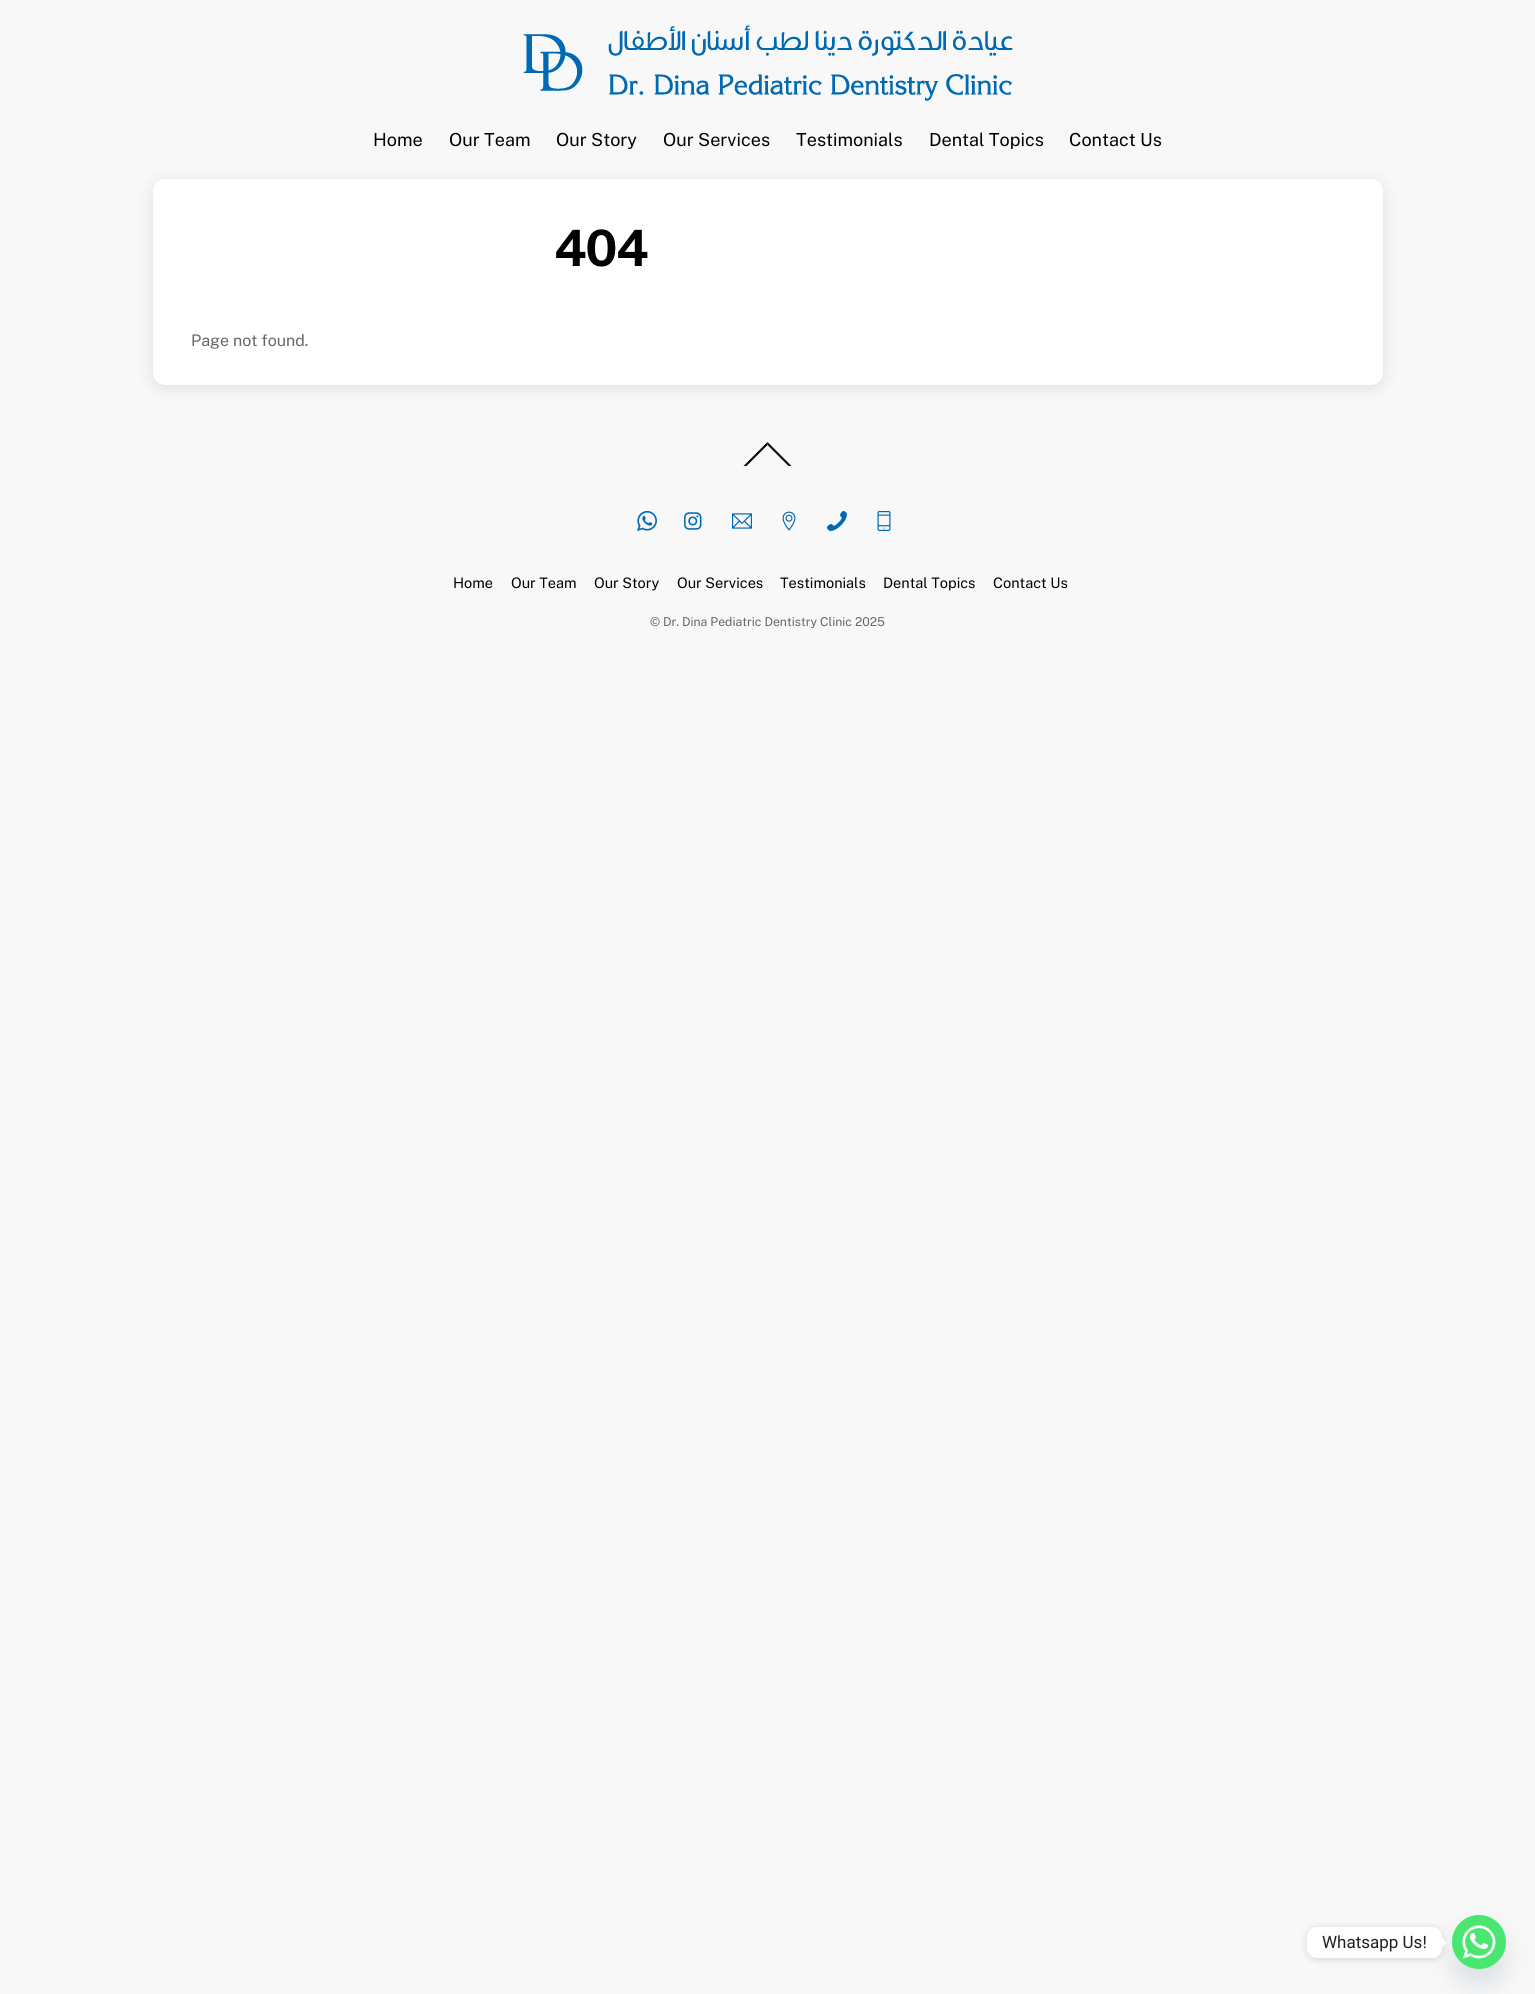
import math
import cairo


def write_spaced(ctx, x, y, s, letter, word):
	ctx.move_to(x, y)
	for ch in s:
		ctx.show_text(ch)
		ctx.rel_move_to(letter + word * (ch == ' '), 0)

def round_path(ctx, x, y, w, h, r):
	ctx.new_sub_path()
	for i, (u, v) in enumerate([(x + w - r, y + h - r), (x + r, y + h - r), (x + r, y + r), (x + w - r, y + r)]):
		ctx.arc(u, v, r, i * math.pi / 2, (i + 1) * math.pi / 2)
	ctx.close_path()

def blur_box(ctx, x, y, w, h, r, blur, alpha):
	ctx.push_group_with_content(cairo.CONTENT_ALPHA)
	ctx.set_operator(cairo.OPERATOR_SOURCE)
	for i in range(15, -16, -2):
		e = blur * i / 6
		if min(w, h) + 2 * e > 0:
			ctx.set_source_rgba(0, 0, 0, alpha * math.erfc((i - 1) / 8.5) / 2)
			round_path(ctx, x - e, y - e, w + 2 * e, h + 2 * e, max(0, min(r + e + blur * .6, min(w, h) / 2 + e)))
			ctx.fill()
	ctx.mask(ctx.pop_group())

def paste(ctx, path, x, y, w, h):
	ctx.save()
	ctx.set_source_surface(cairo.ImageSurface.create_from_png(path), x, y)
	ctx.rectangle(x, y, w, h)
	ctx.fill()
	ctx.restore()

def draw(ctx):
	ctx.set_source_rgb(0.969, 0.969, 0.969)
	ctx.paint()
	paste(ctx, 'media/1.png', 523, 25, 490, 76)
	ctx.select_font_face('Public Sans')
	ctx.set_font_size(18)
	ctx.set_source_rgb(0, 0, 0)
	for x, y, s in [
		(373, 146, 'Home'),
		(449, 146, 'Our Team'),
		(556, 146, 'Our Story'),
		(663, 146, 'Our Services'),
		(796, 146, 'Testimonials'),
		(929, 146, 'Dental Topics'),
		(1069, 146, 'Contact Us'),
	]:
		ctx.move_to(x, y)
		ctx.show_text(s)
	ctx.set_source_rgb(0, 0, 0)
	blur_box(ctx, 153, 182, 1230, 206, 12, 8, 0.1)
	ctx.set_source_rgb(1, 1, 1)
	round_path(ctx, 153, 179, 1230, 206, 12)
	ctx.fill()
	ctx.select_font_face('Public Sans', cairo.FONT_SLANT_NORMAL, cairo.FONT_WEIGHT_BOLD)
	ctx.set_font_size(50)
	ctx.set_source_rgb(0, 0, 0)
	write_spaced(ctx, 554, 266, '404', -1.5, 0)
	ctx.select_font_face('Public Sans')
	ctx.set_font_size(16)
	ctx.set_source_rgb(0.4, 0.4, 0.4)
	ctx.move_to(191, 346)
	ctx.show_text('Page not found.')
	ctx.set_source_rgb(0, 0, 0)
	ctx.new_path()
	ctx.move_to(767.5, 442)
	ctx.line_to(791.5, 466)
	ctx.line_to(788.5, 466)
	ctx.line_to(767.5, 445)
	ctx.close_path()
	ctx.fill()
	ctx.new_path()
	ctx.move_to(743.5, 466)
	ctx.line_to(767.5, 442)
	ctx.line_to(767.5, 445)
	ctx.line_to(746.5, 466)
	ctx.close_path()
	ctx.fill()
	paste(ctx, 'media/2.png', 637, 511, 20, 20)
	paste(ctx, 'media/3.png', 684, 512, 18, 18)
	paste(ctx, 'media/4.png', 732, 513, 20, 16)
	paste(ctx, 'media/5.png', 782, 511, 14, 20)
	paste(ctx, 'media/6.png', 827, 511, 20, 20)
	paste(ctx, 'media/7.png', 877, 511, 14, 20)
	ctx.set_font_size(14.5)
	for x, y, s in [
		(453, 588, 'Home'),
		(511, 588, 'Our Team'),
		(594, 588, 'Our Story'),
		(677, 588, 'Our Services'),
		(780, 588, 'Testimonials'),
		(883, 588, 'Dental Topics'),
		(993, 588, 'Contact Us'),
	]:
		ctx.move_to(x, y)
		ctx.show_text(s)
	ctx.set_font_size(12.25)
	ctx.set_source_rgb(0.4, 0.4, 0.4)
	ctx.move_to(650, 626)
	ctx.show_text('© Dr. Dina Pediatric Dentistry Clinic 2025')
	ctx.set_source_rgb(0.286, 0.408, 0.494)
	blur_box(ctx, 1452, 1931, 54, 54, 27, 12, 0.16)
	paste(ctx, 'media/8.png', 1452, 1915, 54, 54)
	ctx.set_source_rgb(0, 0, 0)
	blur_box(ctx, 1307, 1928, 135, 31, 10, 4, 0.15)
	ctx.set_source_rgb(1, 1, 1)
	round_path(ctx, 1307, 1927, 135, 31, 10)
	ctx.fill()
	ctx.select_font_face('Roboto')
	ctx.set_font_size(17)
	ctx.set_source_rgb(0.125, 0.125, 0.125)
	ctx.move_to(1322, 1948)
	ctx.show_text('Whatsapp Us!')
	ctx.set_source_rgb(1, 1, 1)
	ctx.new_path()
	ctx.move_to(1442, 1947.5)
	ctx.line_to(1442, 1937.5)
	ctx.line_to(1447, 1942.5)
	ctx.close_path()
	ctx.fill()


surface = cairo.ImageSurface(cairo.FORMAT_RGB24, 1535, 1994)
ctx = cairo.Context(surface)
options = cairo.FontOptions()
options.set_hint_metrics(cairo.HINT_METRICS_OFF)
options.set_hint_style(cairo.HINT_STYLE_NONE)
ctx.set_font_options(options)
ctx.set_miter_limit(4)
draw(ctx)
surface.write_to_png('image.png')
